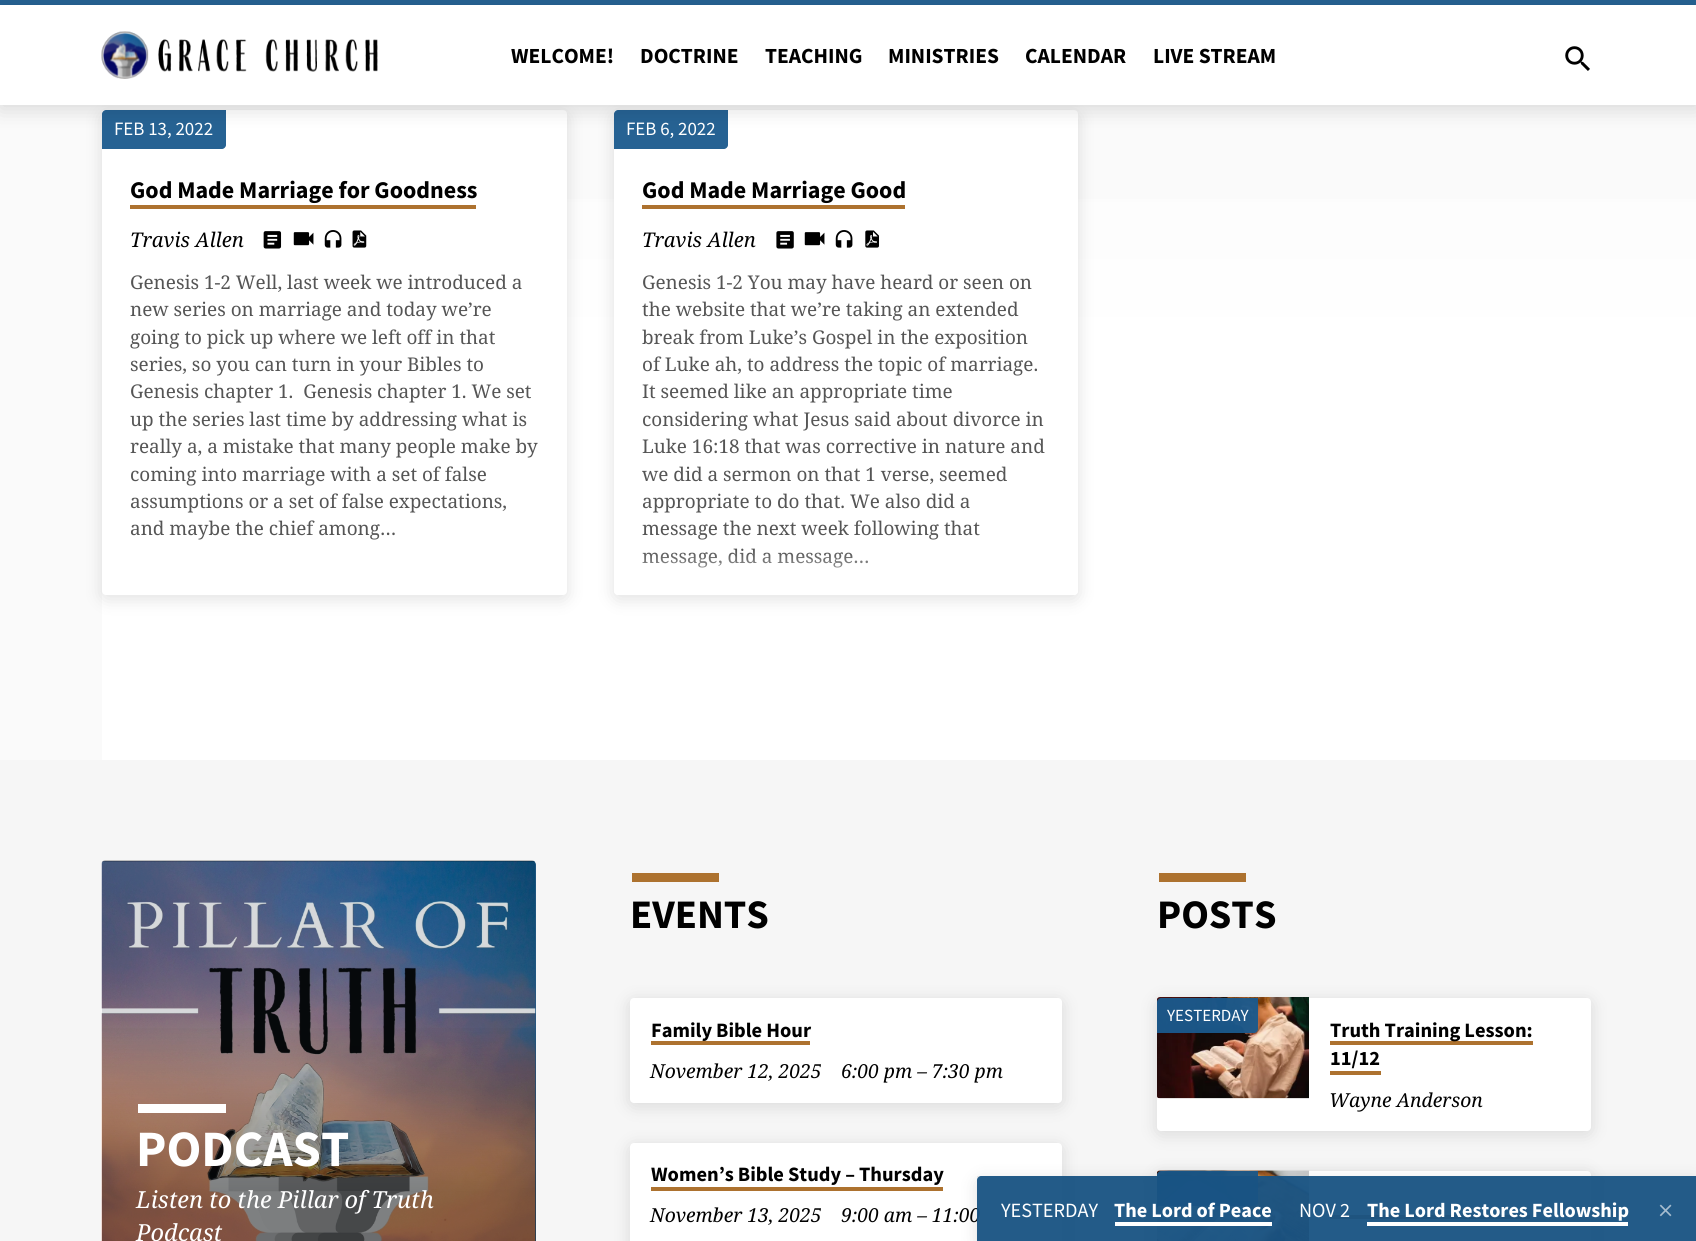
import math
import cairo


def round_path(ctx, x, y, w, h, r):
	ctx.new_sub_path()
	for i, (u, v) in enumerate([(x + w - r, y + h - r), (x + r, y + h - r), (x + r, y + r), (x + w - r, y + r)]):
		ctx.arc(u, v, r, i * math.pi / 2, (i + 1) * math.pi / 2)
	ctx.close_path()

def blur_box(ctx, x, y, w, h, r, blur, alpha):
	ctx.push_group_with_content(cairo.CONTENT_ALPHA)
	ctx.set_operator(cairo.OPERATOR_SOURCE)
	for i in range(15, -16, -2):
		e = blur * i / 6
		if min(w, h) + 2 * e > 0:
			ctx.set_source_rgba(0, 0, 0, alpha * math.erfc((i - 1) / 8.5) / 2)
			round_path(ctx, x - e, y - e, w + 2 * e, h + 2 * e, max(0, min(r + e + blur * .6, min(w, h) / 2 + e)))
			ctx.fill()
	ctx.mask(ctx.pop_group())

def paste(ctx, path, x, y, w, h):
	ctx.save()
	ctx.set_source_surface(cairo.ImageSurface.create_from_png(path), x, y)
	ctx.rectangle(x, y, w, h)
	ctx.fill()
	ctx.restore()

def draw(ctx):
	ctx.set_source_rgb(0.98, 0.98, 0.98)
	ctx.paint()
	ctx.set_source_rgb(0.149, 0.384, 0.576)
	ctx.rectangle(0, 0, 1696, 5)
	ctx.fill()
	gradient = cairo.LinearGradient(950, -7, 950, 760)
	gradient.add_color_stop_rgba(0.23, 0.988, 0.988, 0.988, 1)
	gradient.add_color_stop_rgba(0.46, 1, 1, 1, 1)
	ctx.set_source(gradient)
	ctx.rectangle(102, 199, 1594, 561)
	ctx.fill()
	ctx.set_source_rgb(0, 0, 0)
	blur_box(ctx, 102, 114, 465, 485, 4, 9, 0.12)
	blur_box(ctx, 614, 114, 464, 485, 4, 9, 0.12)
	ctx.set_source_rgba(1, 1, 1, 0.95)
	ctx.rectangle(0, 5, 1696, 100)
	ctx.fill()
	ctx.set_source_rgb(1, 1, 1)
	round_path(ctx, 102, 110, 465, 485, 4)
	ctx.fill()
	ctx.set_source_rgb(0.149, 0.384, 0.576)
	ctx.new_path()
	ctx.move_to(106, 110)
	ctx.line_to(226, 110)
	ctx.line_to(226, 145)
	ctx.curve_to(226, 147, 224, 149, 222, 149)
	ctx.line_to(102, 149)
	ctx.line_to(102, 114)
	ctx.curve_to(102, 112, 104, 110, 106, 110)
	ctx.close_path()
	ctx.fill()
	ctx.set_source_rgb(1, 1, 1)
	round_path(ctx, 614, 110, 464, 485, 4)
	ctx.fill()
	ctx.set_source_rgb(0.149, 0.384, 0.576)
	ctx.new_path()
	ctx.move_to(618, 110)
	ctx.line_to(728, 110)
	ctx.line_to(728, 145)
	ctx.curve_to(728, 147, 726, 149, 724, 149)
	ctx.line_to(614, 149)
	ctx.line_to(614, 114)
	ctx.curve_to(614, 112, 616, 110, 618, 110)
	ctx.close_path()
	ctx.fill()
	ctx.save()
	ctx.set_fill_rule(cairo.FILL_RULE_EVEN_ODD)
	ctx.new_path()
	ctx.move_to(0, 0)
	ctx.line_to(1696, 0)
	ctx.line_to(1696, 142)
	ctx.line_to(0, 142)
	ctx.close_path()
	ctx.move_to(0, 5)
	ctx.line_to(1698, 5)
	ctx.line_to(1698, 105)
	ctx.line_to(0, 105)
	ctx.close_path()
	ctx.clip()
	ctx.set_source_rgb(0, 0, 0)
	blur_box(ctx, 0, 9, 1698, 100, 0, 10.5, 0.14)
	ctx.restore()
	paste(ctx, 'media/1.png', 101, 31, 277, 48)
	ctx.select_font_face('Source Sans Pro', cairo.FONT_SLANT_NORMAL, cairo.FONT_WEIGHT_BOLD)
	ctx.set_font_size(21.5)
	ctx.set_source_rgb(0, 0, 0)
	for x, y, s in [
		(511, 63, 'WELCOME!'),
		(640, 63, 'DOCTRINE'),
		(765, 63, 'TEACHING'),
		(888, 63, 'MINISTRIES'),
		(1025, 63, 'CALENDAR'),
		(1153, 63, 'LIVE STREAM'),
	]:
		ctx.move_to(x, y)
		ctx.show_text(s)
	paste(ctx, 'media/2.png', 1565, 46, 25, 25)
	ctx.select_font_face('Source Sans Pro')
	ctx.set_font_size(18.9)
	ctx.set_source_rgb(1, 1, 1)
	ctx.move_to(114, 135)
	ctx.show_text('FEB 13, 2022')
	ctx.select_font_face('Source Sans Pro', cairo.FONT_SLANT_NORMAL, cairo.FONT_WEIGHT_BOLD)
	ctx.set_font_size(24)
	ctx.set_source_rgb(0, 0, 0)
	ctx.move_to(130, 198)
	ctx.show_text('God Made Marriage for Goodness')
	ctx.set_source_rgb(0.678, 0.447, 0.184)
	ctx.rectangle(130, 205, 346, 4)
	ctx.fill()
	ctx.select_font_face('Noto Serif', cairo.FONT_SLANT_ITALIC)
	ctx.set_font_size(20.2)
	ctx.set_source_rgb(0, 0, 0)
	ctx.move_to(130, 247)
	ctx.show_text('Travis Allen')
	paste(ctx, 'media/3.png', 263, 231, 19, 18)
	paste(ctx, 'media/4.png', 293, 232, 21, 14)
	paste(ctx, 'media/5.png', 324, 230, 18, 18)
	paste(ctx, 'media/6.png', 352, 230, 15, 18)
	ctx.select_font_face('Noto Serif')
	ctx.set_font_size(18.9)
	ctx.set_source_rgb(0.333, 0.333, 0.333)
	for x, y, s in [
		(130, 289, 'Genesis 1-2 Well, last week we introduced a'),
		(130, 316, 'new series on marriage and today we’re'),
		(130, 344, 'going to pick up where we left off in that'),
		(130, 371, 'series, so you can turn in your Bibles to'),
		(130, 398, 'Genesis chapter 1.  Genesis chapter 1. We set'),
		(130, 426, 'up the series last time by addressing what is'),
		(130, 453, 'really a, a mistake that many people make by'),
		(130, 481, 'coming into marriage with a set of false'),
		(130, 508, 'assumptions or a set of false expectations,'),
		(130, 535, 'and maybe the chief among…'),
	]:
		ctx.move_to(x, y)
		ctx.show_text(s)
	ctx.select_font_face('Source Sans Pro')
	ctx.set_source_rgb(1, 1, 1)
	ctx.move_to(626, 135)
	ctx.show_text('FEB 6, 2022')
	ctx.select_font_face('Source Sans Pro', cairo.FONT_SLANT_NORMAL, cairo.FONT_WEIGHT_BOLD)
	ctx.set_font_size(24)
	ctx.set_source_rgb(0, 0, 0)
	ctx.move_to(642, 198)
	ctx.show_text('God Made Marriage Good')
	ctx.set_source_rgb(0.678, 0.447, 0.184)
	ctx.rectangle(642, 205, 263, 4)
	ctx.fill()
	ctx.select_font_face('Noto Serif', cairo.FONT_SLANT_ITALIC)
	ctx.set_font_size(20.2)
	ctx.set_source_rgb(0, 0, 0)
	ctx.move_to(642, 247)
	ctx.show_text('Travis Allen')
	paste(ctx, 'media/7.png', 776, 231, 18, 18)
	paste(ctx, 'media/4.png', 804, 232, 21, 14)
	paste(ctx, 'media/5.png', 835, 230, 18, 18)
	paste(ctx, 'media/8.png', 865, 230, 14, 18)
	ctx.select_font_face('Noto Serif')
	ctx.set_font_size(18.9)
	ctx.set_source_rgb(0.333, 0.333, 0.333)
	for x, y, s in [
		(642, 289, 'Genesis 1-2 You may have heard or seen on'),
		(642, 316, 'the website that we’re taking an extended'),
		(642, 344, 'break from Luke’s Gospel in the exposition'),
		(642, 371, 'of Luke ah, to address the topic of marriage.'),
		(642, 398, 'It seemed like an appropriate time'),
		(642, 426, 'considering what Jesus said about divorce in'),
		(642, 453, 'Luke 16:18 that was corrective in nature and'),
		(642, 481, 'we did a sermon on that 1 verse, seemed'),
		(642, 508, 'appropriate to do that. We also did a'),
		(642, 535, 'message the next week following that'),
		(642, 563, 'message, did a message…'),
	]:
		ctx.move_to(x, y)
		ctx.show_text(s)
	gradient = cairo.LinearGradient(846, 551, 846, 595)
	gradient.add_color_stop_rgba(0, 1, 1, 1, 0)
	gradient.add_color_stop_rgba(1, 1, 1, 1, 0.9)
	ctx.set_source(gradient)
	ctx.new_path()
	ctx.move_to(614, 551)
	ctx.line_to(1078, 551)
	ctx.line_to(1078, 591)
	ctx.curve_to(1078, 593, 1076, 595, 1074, 595)
	ctx.line_to(618, 595)
	ctx.curve_to(616, 595, 614, 593, 614, 591)
	ctx.close_path()
	ctx.fill()
	ctx.set_source_rgb(0.961, 0.961, 0.961)
	ctx.rectangle(0, 760, 1696, 481)
	ctx.fill()
	ctx.set_source_rgb(0.678, 0.447, 0.184)
	ctx.rectangle(632, 873, 87, 9)
	ctx.fill()
	ctx.select_font_face('Source Sans Pro', cairo.FONT_SLANT_NORMAL, cairo.FONT_WEIGHT_BOLD)
	ctx.set_font_size(40.5)
	ctx.set_source_rgb(0, 0, 0)
	ctx.move_to(630, 928)
	ctx.show_text('EVENTS')
	ctx.set_source_rgb(0, 0, 0)
	blur_box(ctx, 630, 1001, 432, 105, 4, 9, 0.12)
	ctx.set_source_rgb(1, 1, 1)
	round_path(ctx, 630, 998, 432, 105, 4)
	ctx.fill()
	ctx.set_font_size(20.4)
	ctx.set_source_rgb(0, 0, 0)
	ctx.move_to(651, 1037)
	ctx.show_text('Family Bible Hour')
	ctx.set_source_rgb(0.678, 0.447, 0.184)
	ctx.rectangle(651, 1041, 159, 4)
	ctx.fill()
	ctx.select_font_face('Noto Serif', cairo.FONT_SLANT_ITALIC)
	ctx.set_font_size(19.25)
	ctx.set_source_rgb(0, 0, 0)
	ctx.move_to(650, 1078)
	ctx.show_text('November 12, 2025')
	ctx.move_to(841, 1078)
	ctx.show_text('6:00 pm – 7:30 pm')
	ctx.set_source_rgb(0, 0, 0)
	blur_box(ctx, 630, 1146, 432, 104, 4, 9, 0.12)
	ctx.set_source_rgb(1, 1, 1)
	round_path(ctx, 630, 1143, 432, 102, 4)
	ctx.fill()
	ctx.select_font_face('Source Sans Pro', cairo.FONT_SLANT_NORMAL, cairo.FONT_WEIGHT_BOLD)
	ctx.set_font_size(20.4)
	ctx.set_source_rgb(0, 0, 0)
	ctx.move_to(651, 1181)
	ctx.show_text('Women’s Bible Study – Thursday')
	ctx.set_source_rgb(0.678, 0.447, 0.184)
	ctx.rectangle(651, 1187, 292, 4)
	ctx.fill()
	ctx.select_font_face('Noto Serif', cairo.FONT_SLANT_ITALIC)
	ctx.set_font_size(19.25)
	ctx.set_source_rgb(0, 0, 0)
	ctx.move_to(650, 1222)
	ctx.show_text('November 13, 2025')
	ctx.move_to(841, 1222)
	ctx.show_text('9:00 am – 11:00')
	ctx.set_source_rgb(0.678, 0.447, 0.184)
	ctx.rectangle(1159, 873, 87, 9)
	ctx.fill()
	ctx.select_font_face('Source Sans Pro', cairo.FONT_SLANT_NORMAL, cairo.FONT_WEIGHT_BOLD)
	ctx.set_font_size(40.5)
	ctx.set_source_rgb(0, 0, 0)
	ctx.move_to(1157, 928)
	ctx.show_text('POSTS')
	ctx.set_source_rgb(0, 0, 0)
	blur_box(ctx, 1157, 1001, 434, 133, 4, 9, 0.12)
	ctx.set_source_rgb(1, 1, 1)
	round_path(ctx, 1157, 998, 434, 133, 4)
	ctx.fill()
	paste(ctx, 'media/9.png', 1157, 997, 152, 102)
	ctx.set_source_rgba(0.106, 0.353, 0.553, 0.95)
	ctx.new_path()
	ctx.move_to(1161, 998)
	ctx.line_to(1258, 998)
	ctx.line_to(1258, 1029)
	ctx.curve_to(1258, 1031, 1256, 1033, 1254, 1033)
	ctx.line_to(1157, 1033)
	ctx.line_to(1157, 1002)
	ctx.curve_to(1157, 1000, 1159, 998, 1161, 998)
	ctx.close_path()
	ctx.fill()
	ctx.select_font_face('Source Sans Pro')
	ctx.set_font_size(17)
	ctx.set_source_rgb(1, 1, 1)
	ctx.move_to(1167, 1021)
	ctx.show_text('YESTERDAY')
	ctx.set_source_rgb(0.678, 0.447, 0.184)
	ctx.rectangle(1330, 1041, 203, 4)
	ctx.fill()
	ctx.select_font_face('Source Sans Pro', cairo.FONT_SLANT_NORMAL, cairo.FONT_WEIGHT_BOLD)
	ctx.set_font_size(20.4)
	ctx.set_source_rgb(0, 0, 0)
	ctx.move_to(1330, 1037)
	ctx.show_text('Truth Training Lesson:')
	ctx.move_to(1330, 1065)
	ctx.show_text('11/12')
	ctx.set_source_rgb(0.678, 0.447, 0.184)
	ctx.rectangle(1330, 1071, 51, 4)
	ctx.fill()
	ctx.select_font_face('Noto Serif', cairo.FONT_SLANT_ITALIC)
	ctx.set_font_size(19.25)
	ctx.set_source_rgb(0, 0, 0)
	ctx.move_to(1329, 1107)
	ctx.show_text('Wayne Anderson')
	ctx.set_source_rgb(0, 0, 0)
	blur_box(ctx, 1157, 1174, 434, 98, 4, 9, 0.12)
	ctx.set_source_rgb(1, 1, 1)
	round_path(ctx, 1157, 1171, 434, 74, 4)
	ctx.fill()
	paste(ctx, 'media/10.png', 1157, 1170, 152, 71)
	ctx.set_source_rgba(0.106, 0.353, 0.553, 0.95)
	ctx.new_path()
	ctx.move_to(1161, 1171)
	ctx.line_to(1258, 1171)
	ctx.line_to(1258, 1202)
	ctx.curve_to(1258, 1204, 1256, 1206, 1254, 1206)
	ctx.line_to(1157, 1206)
	ctx.line_to(1157, 1175)
	ctx.curve_to(1157, 1173, 1159, 1171, 1161, 1171)
	ctx.close_path()
	ctx.fill()
	ctx.set_source_rgb(0.678, 0.447, 0.184)
	ctx.rectangle(1330, 1215, 200, 4)
	ctx.fill()
	ctx.set_source_rgb(0.149, 0.384, 0.573)
	round_path(ctx, 102, 861, 434, 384, 4)
	ctx.fill()
	paste(ctx, 'media/11.png', 101, 860, 435, 381)
	ctx.set_source_rgba(0, 0, 0, 0.1)
	round_path(ctx, 102, 861, 434, 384, 4)
	ctx.fill()
	gradient = cairo.LinearGradient(318, 861, 319, 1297)
	gradient.add_color_stop_rgba(0, 1, 1, 1, 0)
	gradient.add_color_stop_rgba(0.36, 0, 0, 0, 0)
	gradient.add_color_stop_rgba(0.76, 0, 0, 0, 0.35)
	gradient.add_color_stop_rgba(1, 0, 0, 0, 0.35)
	ctx.set_source(gradient)
	ctx.rectangle(102, 1028, 434, 213)
	ctx.fill()
	ctx.set_source_rgb(1, 1, 1)
	ctx.rectangle(138, 1104, 88, 9)
	ctx.fill()
	ctx.select_font_face('Source Sans Pro', cairo.FONT_SLANT_NORMAL, cairo.FONT_WEIGHT_BOLD)
	ctx.set_font_size(51)
	ctx.move_to(136, 1166)
	ctx.show_text('PODCAST')
	ctx.select_font_face('Noto Serif', cairo.FONT_SLANT_ITALIC)
	ctx.set_font_size(23.5)
	ctx.move_to(136, 1208)
	ctx.show_text('Listen to the Pillar of Truth')
	ctx.move_to(136, 1241)
	ctx.show_text('Podcast')
	ctx.save()
	ctx.set_fill_rule(cairo.FILL_RULE_EVEN_ODD)
	ctx.new_path()
	ctx.move_to(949, 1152)
	ctx.line_to(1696, 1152)
	ctx.line_to(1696, 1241)
	ctx.line_to(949, 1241)
	ctx.close_path()
	ctx.move_to(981, 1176)
	ctx.line_to(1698, 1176)
	ctx.line_to(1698, 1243)
	ctx.line_to(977, 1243)
	ctx.line_to(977, 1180)
	ctx.curve_to(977, 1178, 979, 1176, 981, 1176)
	ctx.close_path()
	ctx.clip()
	ctx.set_source_rgb(0, 0, 0)
	blur_box(ctx, 977, 1180, 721, 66, 4, 9, 0.12)
	ctx.restore()
	ctx.set_source_rgba(0.106, 0.353, 0.553, 0.95)
	ctx.new_path()
	ctx.move_to(981, 1176)
	ctx.line_to(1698, 1176)
	ctx.line_to(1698, 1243)
	ctx.line_to(977, 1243)
	ctx.line_to(977, 1180)
	ctx.curve_to(977, 1178, 979, 1176, 981, 1176)
	ctx.close_path()
	ctx.fill()
	ctx.set_source_rgba(0, 0, 0, 0.07)
	ctx.rectangle(977, 1176, 719, 65)
	ctx.fill()
	ctx.select_font_face('Source Sans Pro')
	ctx.set_font_size(20.2)
	ctx.set_source_rgb(1, 1, 1)
	ctx.move_to(1001, 1217)
	ctx.show_text('YESTERDAY')
	ctx.select_font_face('Source Sans Pro', cairo.FONT_SLANT_NORMAL, cairo.FONT_WEIGHT_BOLD)
	ctx.move_to(1114, 1217)
	ctx.show_text('The Lord of Peace')
	ctx.rectangle(1115, 1222, 157, 4)
	ctx.fill()
	ctx.select_font_face('Source Sans Pro')
	ctx.move_to(1299, 1217)
	ctx.show_text('NOV 2')
	ctx.select_font_face('Source Sans Pro', cairo.FONT_SLANT_NORMAL, cairo.FONT_WEIGHT_BOLD)
	ctx.move_to(1367, 1217)
	ctx.show_text('The Lord Restores Fellowship')
	ctx.rectangle(1367, 1222, 261, 4)
	ctx.fill()
	paste(ctx, 'media/12.png', 1659, 1204, 13, 13)


surface = cairo.ImageSurface(cairo.FORMAT_RGB24, 1696, 1241)
ctx = cairo.Context(surface)
options = cairo.FontOptions()
options.set_hint_metrics(cairo.HINT_METRICS_OFF)
options.set_hint_style(cairo.HINT_STYLE_NONE)
ctx.set_font_options(options)
ctx.set_miter_limit(4)
draw(ctx)
surface.write_to_png('image.png')
